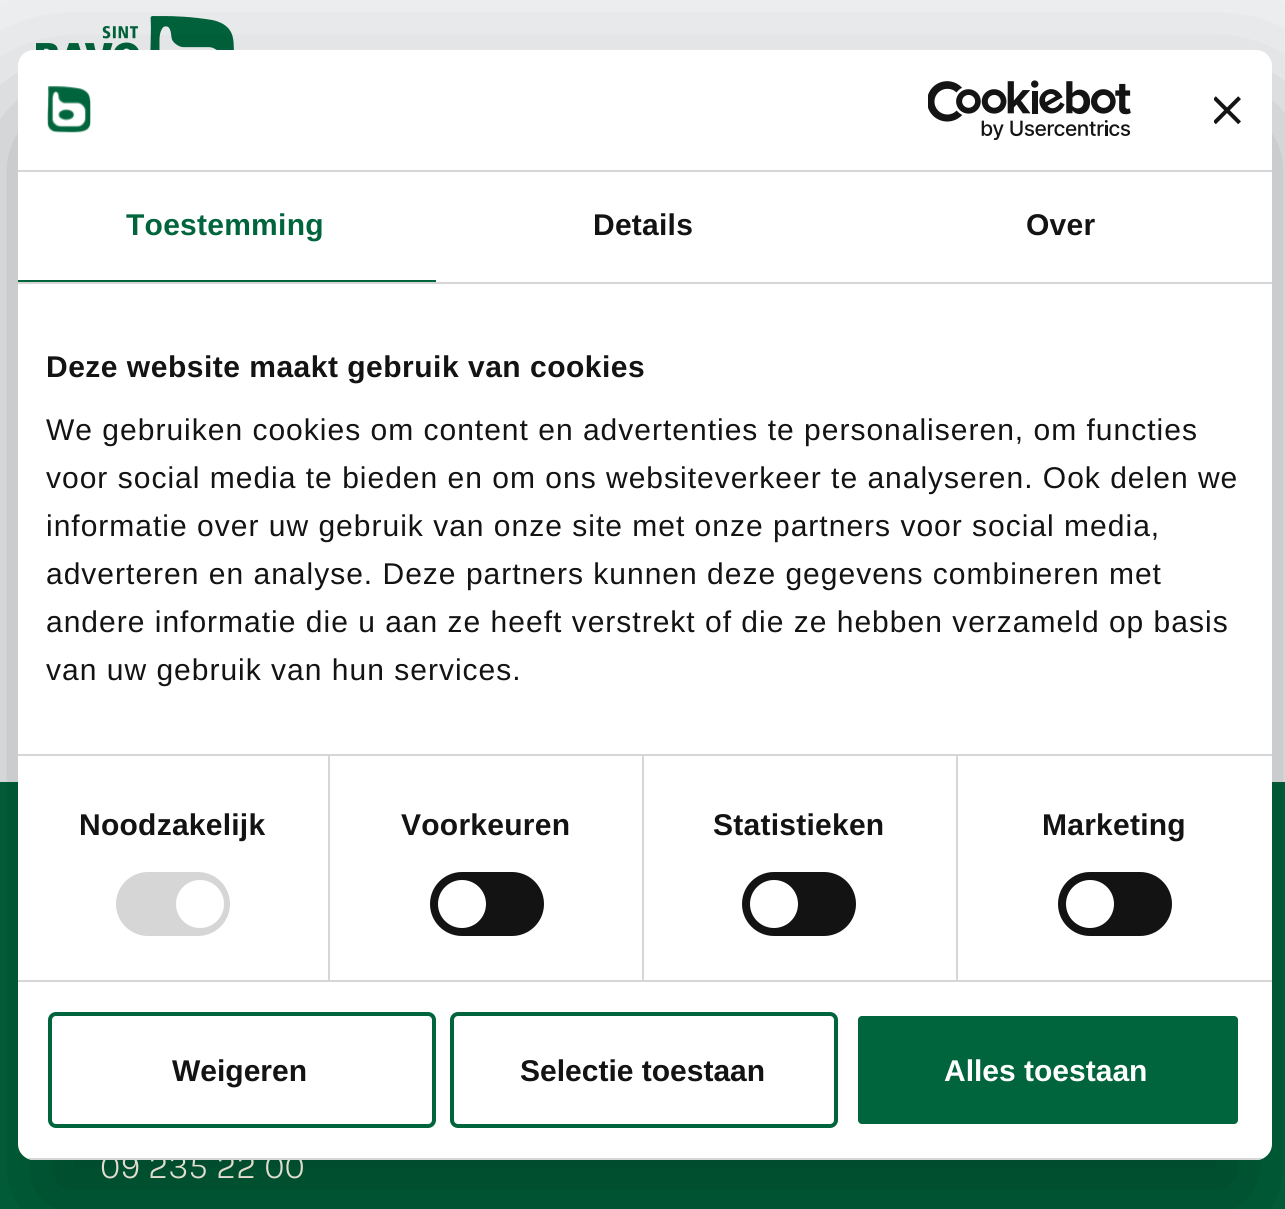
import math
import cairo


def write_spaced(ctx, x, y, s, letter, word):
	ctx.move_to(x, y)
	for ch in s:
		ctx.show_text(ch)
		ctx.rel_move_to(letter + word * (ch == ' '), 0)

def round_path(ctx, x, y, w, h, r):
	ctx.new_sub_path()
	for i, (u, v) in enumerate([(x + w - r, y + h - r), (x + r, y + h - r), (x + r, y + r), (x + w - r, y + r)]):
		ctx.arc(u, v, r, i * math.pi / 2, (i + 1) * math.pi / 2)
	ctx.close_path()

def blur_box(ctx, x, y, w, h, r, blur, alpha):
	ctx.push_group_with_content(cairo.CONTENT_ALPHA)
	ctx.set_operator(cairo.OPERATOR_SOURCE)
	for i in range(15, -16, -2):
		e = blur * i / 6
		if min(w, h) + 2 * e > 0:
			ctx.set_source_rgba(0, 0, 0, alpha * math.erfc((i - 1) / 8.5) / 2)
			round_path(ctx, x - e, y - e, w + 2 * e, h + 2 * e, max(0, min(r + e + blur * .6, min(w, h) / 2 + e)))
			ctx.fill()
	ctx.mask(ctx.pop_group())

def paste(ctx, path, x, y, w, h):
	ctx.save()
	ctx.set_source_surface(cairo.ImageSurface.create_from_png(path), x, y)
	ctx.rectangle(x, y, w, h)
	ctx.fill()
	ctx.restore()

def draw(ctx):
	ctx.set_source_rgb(0.933, 0.941, 0.945)
	ctx.paint()
	paste(ctx, 'media/1.png', 36, 16, 198, 34)
	ctx.set_source_rgb(0, 0.4, 0.239)
	ctx.rectangle(0, 782, 1285, 427)
	ctx.fill()
	ctx.set_source_rgb(0, 0, 0)
	blur_box(ctx, 18, 114, 1254, 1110, 16, 68, 0.3)
	ctx.select_font_face('Karla Light')
	ctx.set_font_size(35.25)
	ctx.set_source_rgb(0.886, 0.863, 0.812)
	ctx.move_to(100, 1178)
	ctx.show_text('09 235 22 00')
	ctx.set_source_rgb(1, 1, 1)
	round_path(ctx, 18, 50, 1254, 1110, 16)
	ctx.fill()
	ctx.set_source_rgb(0.839, 0.839, 0.839)
	ctx.rectangle(18, 170, 1254, 2)
	ctx.fill()
	paste(ctx, 'media/2.png', 47, 86, 44, 47)
	paste(ctx, 'media/3.png', 928, 80, 203, 60)
	paste(ctx, 'media/4.png', 1214, 96, 27, 28)
	ctx.rectangle(18, 282, 1254, 2)
	ctx.fill()
	ctx.set_source_rgb(0, 0.392, 0.235)
	ctx.rectangle(18, 280, 418, 2)
	ctx.fill()
	ctx.select_font_face('Liberation Sans', cairo.FONT_SLANT_NORMAL, cairo.FONT_WEIGHT_BOLD)
	ctx.set_font_size(30)
	write_spaced(ctx, 126, 235, 'Toestemming', 0.25, 0)
	ctx.set_source_rgb(0.078, 0.078, 0.078)
	write_spaced(ctx, 593, 235, 'Details', 0.25, 0)
	write_spaced(ctx, 1026, 235, 'Over', 0.25, 0)
	ctx.set_source_rgb(0.839, 0.839, 0.839)
	ctx.rectangle(18, 754, 1254, 2)
	ctx.fill()
	ctx.set_source_rgb(0.078, 0.078, 0.078)
	write_spaced(ctx, 46, 377, 'Deze website maakt gebruik van cookies', 0.5, 0)
	ctx.select_font_face('Liberation Sans')
	for x, y, s in [
		(46, 440, 'We gebruiken cookies om content en advertenties te personaliseren, om functies'),
		(46, 488, 'voor social media te bieden en om ons websiteverkeer te analyseren. Ook delen we'),
		(46, 536, 'informatie over uw gebruik van onze site met onze partners voor social media,'),
		(46, 584, 'adverteren en analyse. Deze partners kunnen deze gegevens combineren met'),
		(46, 632, 'andere informatie die u aan ze heeft verstrekt of die ze hebben verzameld op basis'),
		(46, 680, 'van uw gebruik van hun services.'),
	]:
		write_spaced(ctx, x, y, s, 1, 0)
	ctx.set_source_rgb(0.839, 0.839, 0.839)
	ctx.rectangle(18, 980, 1254, 2)
	ctx.fill()
	ctx.rectangle(328, 756, 2, 224)
	ctx.fill()
	ctx.select_font_face('Liberation Sans', cairo.FONT_SLANT_NORMAL, cairo.FONT_WEIGHT_BOLD)
	ctx.set_source_rgb(0.078, 0.078, 0.078)
	write_spaced(ctx, 79, 835, 'Noodzakelijk', 0.25, 0)
	ctx.set_source_rgb(0.839, 0.839, 0.839)
	round_path(ctx, 116, 872, 114, 64, 32)
	ctx.fill()
	ctx.set_source_rgb(1, 1, 1)
	ctx.arc(200, 904, 24, 0, 2 * math.pi)
	ctx.fill()
	ctx.set_source_rgb(0.839, 0.839, 0.839)
	ctx.rectangle(642, 756, 2, 224)
	ctx.fill()
	ctx.set_source_rgb(0.078, 0.078, 0.078)
	write_spaced(ctx, 401, 835, 'Voorkeuren', 0.25, 0)
	round_path(ctx, 430, 872, 114, 64, 32)
	ctx.fill()
	ctx.set_source_rgb(1, 1, 1)
	ctx.arc(462, 904, 24, 0, 2 * math.pi)
	ctx.fill()
	ctx.set_source_rgb(0.839, 0.839, 0.839)
	ctx.rectangle(956, 756, 2, 224)
	ctx.fill()
	ctx.set_source_rgb(0.078, 0.078, 0.078)
	write_spaced(ctx, 713, 835, 'Statistieken', 0.25, 0)
	round_path(ctx, 742, 872, 114, 64, 32)
	ctx.fill()
	ctx.set_source_rgb(1, 1, 1)
	ctx.arc(774, 904, 24, 0, 2 * math.pi)
	ctx.fill()
	ctx.set_source_rgb(0.078, 0.078, 0.078)
	write_spaced(ctx, 1042, 835, 'Marketing', 0.25, 0)
	round_path(ctx, 1058, 872, 114, 64, 32)
	ctx.fill()
	ctx.set_source_rgb(1, 1, 1)
	ctx.arc(1090, 904, 24, 0, 2 * math.pi)
	ctx.fill()
	ctx.save()
	round_path(ctx, 18, 50, 1254, 1110, 16)
	ctx.clip()
	ctx.set_source_rgb(0.839, 0.839, 0.839)
	ctx.rectangle(18, 1158, 1254, 2)
	ctx.fill()
	ctx.restore()
	round_path(ctx, 50, 1014, 384, 112, 6)
	ctx.set_source_rgb(0, 0.392, 0.235)
	ctx.set_line_width(4)
	ctx.stroke()
	ctx.set_source_rgb(0.078, 0.078, 0.078)
	ctx.move_to(172, 1081)
	ctx.show_text('Weigeren')
	round_path(ctx, 452, 1014, 384, 112, 6)
	ctx.set_source_rgb(0, 0.392, 0.235)
	ctx.stroke()
	ctx.set_source_rgb(0.078, 0.078, 0.078)
	ctx.move_to(520, 1081)
	ctx.show_text('Selectie toestaan')
	ctx.set_source_rgb(0, 0.392, 0.235)
	round_path(ctx, 856, 1014, 384, 112, 6)
	ctx.fill_preserve()
	ctx.set_source_rgb(1, 1, 1)
	ctx.stroke()
	ctx.move_to(944, 1081)
	ctx.show_text('Alles toestaan')


surface = cairo.ImageSurface(cairo.FORMAT_RGB24, 1285, 1209)
ctx = cairo.Context(surface)
options = cairo.FontOptions()
options.set_hint_metrics(cairo.HINT_METRICS_OFF)
options.set_hint_style(cairo.HINT_STYLE_NONE)
ctx.set_font_options(options)
ctx.set_miter_limit(4)
draw(ctx)
surface.write_to_png('image.png')
